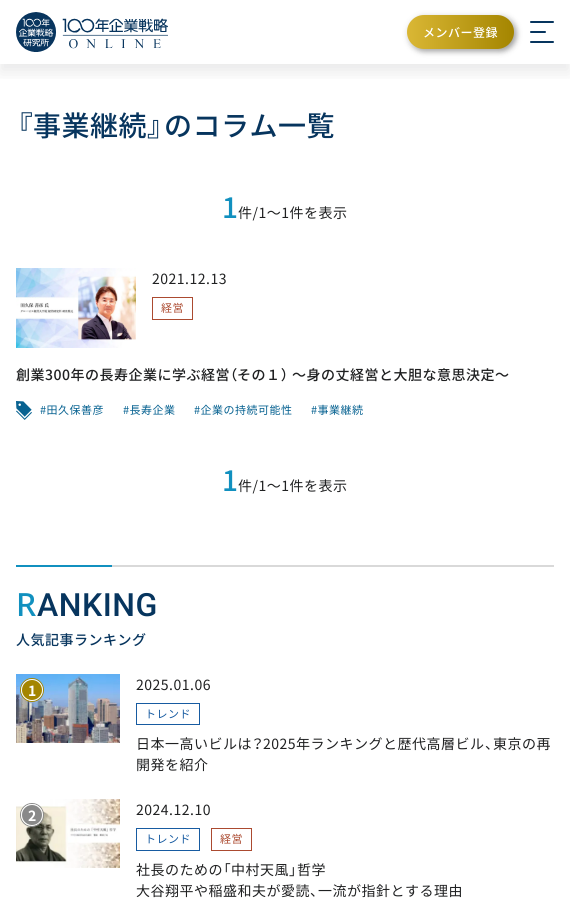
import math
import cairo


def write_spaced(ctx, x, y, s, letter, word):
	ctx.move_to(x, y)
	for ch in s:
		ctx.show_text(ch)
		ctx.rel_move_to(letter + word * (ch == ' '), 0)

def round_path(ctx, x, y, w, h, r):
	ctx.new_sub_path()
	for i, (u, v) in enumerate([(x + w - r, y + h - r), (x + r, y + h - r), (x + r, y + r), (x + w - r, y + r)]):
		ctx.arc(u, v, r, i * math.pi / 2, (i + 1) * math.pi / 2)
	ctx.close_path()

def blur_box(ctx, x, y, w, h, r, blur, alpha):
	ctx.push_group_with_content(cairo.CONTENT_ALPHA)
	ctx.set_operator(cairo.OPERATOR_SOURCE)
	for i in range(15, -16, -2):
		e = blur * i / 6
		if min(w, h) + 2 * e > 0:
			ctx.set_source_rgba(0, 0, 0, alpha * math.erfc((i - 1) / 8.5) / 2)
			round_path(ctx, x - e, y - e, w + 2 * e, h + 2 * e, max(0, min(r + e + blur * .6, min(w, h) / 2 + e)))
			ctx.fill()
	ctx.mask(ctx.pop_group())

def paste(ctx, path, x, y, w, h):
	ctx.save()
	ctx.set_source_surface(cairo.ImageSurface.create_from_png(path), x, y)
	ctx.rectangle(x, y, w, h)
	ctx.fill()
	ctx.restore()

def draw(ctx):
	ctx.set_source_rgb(1, 1, 1)
	ctx.paint()
	ctx.save()
	ctx.rectangle(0, 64, 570, 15)
	ctx.clip()
	ctx.set_source_rgb(0.125, 0.129, 0.133)
	blur_box(ctx, 0, 8, 570, 64, 0, 8, 0.1)
	ctx.restore()
	paste(ctx, 'media/1.png', 16, 12, 152, 40)
	ctx.set_source_rgb(0.125, 0.129, 0.133)
	blur_box(ctx, 409, 17, 107, 34, 17, 3, 0.5)
	ctx.set_source_rgb(1, 1, 1)
	blur_box(ctx, 405, 13, 107, 34, 17, 3, 0.5)
	gradient = cairo.LinearGradient(300, 32, 514, 32)
	gradient.add_color_stop_rgba(0, 0.643, 0.522, 0, 1)
	gradient.add_color_stop_rgba(0.5, 0.855, 0.718, 0.208, 1)
	gradient.add_color_stop_rgba(1, 0.643, 0.522, 0, 1)
	ctx.set_source(gradient)
	round_path(ctx, 407, 15, 107, 34, 17)
	ctx.fill()
	ctx.select_font_face('Noto Sans JP Medium')
	ctx.set_font_size(12)
	ctx.set_source_rgb(1, 1, 1)
	write_spaced(ctx, 423, 37, 'メンバー登録', 0.5, 0)
	ctx.set_source_rgb(0.031, 0.208, 0.369)
	round_path(ctx, 530, 21, 24, 2, 1)
	ctx.fill()
	round_path(ctx, 530, 31, 16, 2, 1)
	ctx.fill()
	round_path(ctx, 530, 41, 24, 2, 1)
	ctx.fill()
	ctx.select_font_face('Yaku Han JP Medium')
	ctx.set_font_size(28)
	write_spaced(ctx, 16, 136, '『', 0.5, 0)
	ctx.select_font_face('Noto Sans JP Medium')
	write_spaced(ctx, 33, 136, '事業継続', 0.5, 0)
	ctx.select_font_face('Yaku Han JP Medium')
	write_spaced(ctx, 147, 136, '』', 0.5, 0)
	ctx.select_font_face('Noto Sans JP Medium')
	write_spaced(ctx, 164, 136, 'のコラム一覧', 0.5, 0)
	ctx.set_source_rgb(0.067, 0.565, 0.749)
	write_spaced(ctx, 222, 218, '1', 0.5, 0)
	ctx.select_font_face('Noto Sans JP')
	ctx.set_font_size(14)
	ctx.set_source_rgb(0.125, 0.129, 0.133)
	write_spaced(ctx, 238, 218, '件/1〜1件を表示', 0.5, 0)
	paste(ctx, 'media/2.png', 16, 268, 120, 80)
	write_spaced(ctx, 152, 284, '2021.12.13', 0.5, 0)
	ctx.rectangle(152.5, 297.5, 40, 22)
	ctx.set_source_rgb(0.671, 0.29, 0.188)
	ctx.set_line_width(1)
	ctx.stroke()
	ctx.set_font_size(11)
	write_spaced(ctx, 161, 312, '経営', 0.5, 0)
	ctx.select_font_face('Noto Sans JP Medium')
	ctx.set_font_size(14)
	ctx.set_source_rgb(0.125, 0.129, 0.133)
	write_spaced(ctx, 16, 380, '創業300年の長寿企業に学ぶ経営', 0.5, 0)
	ctx.select_font_face('Yaku Han JP Medium')
	write_spaced(ctx, 230, 380, '（', 0.5, 0)
	ctx.select_font_face('Noto Sans JP Medium')
	write_spaced(ctx, 237, 380, 'その１', 0.5, 0)
	ctx.select_font_face('Yaku Han JP Medium')
	write_spaced(ctx, 281, 380, '）', 0.5, 0)
	ctx.select_font_face('Noto Sans JP Medium')
	write_spaced(ctx, 292, 380, '～身の丈経営と大胆な意思決定～', 0.5, 0)
	paste(ctx, 'media/3.png', 16, 401, 16, 19)
	ctx.select_font_face('Noto Sans JP')
	ctx.set_font_size(11)
	ctx.set_source_rgb(0.031, 0.384, 0.569)
	for x, y, s in [
		(40, 414, '#田久保善彦'),
		(123, 414, '#長寿企業'),
		(194, 414, '#企業の持続可能性'),
		(311, 414, '#事業継続'),
	]:
		write_spaced(ctx, x, y, s, 0.5, 0)
	ctx.select_font_face('Noto Sans JP Medium')
	ctx.set_font_size(28)
	ctx.set_source_rgb(0.067, 0.565, 0.749)
	write_spaced(ctx, 222, 491, '1', 0.5, 0)
	ctx.select_font_face('Noto Sans JP')
	ctx.set_font_size(14)
	ctx.set_source_rgb(0.125, 0.129, 0.133)
	write_spaced(ctx, 238, 491, '件/1〜1件を表示', 0.5, 0)
	ctx.set_source_rgb(0.067, 0.565, 0.749)
	ctx.rectangle(16, 565, 96, 2)
	ctx.fill()
	ctx.set_source_rgb(0.851, 0.851, 0.851)
	ctx.rectangle(112, 565, 442, 2)
	ctx.fill()
	ctx.select_font_face('Noto Sans Medium')
	ctx.set_font_size(32)
	ctx.set_source_rgb(0.067, 0.565, 0.749)
	write_spaced(ctx, 16, 616, 'R', 0.5, 0)
	ctx.select_font_face('Roboto Medium')
	ctx.set_source_rgb(0.031, 0.208, 0.369)
	write_spaced(ctx, 37, 616, 'ANKING', 0.5, 0)
	ctx.select_font_face('Noto Sans JP Medium')
	ctx.set_font_size(14)
	write_spaced(ctx, 16, 645, '人気記事ランキング', 0.5, 0)
	paste(ctx, 'media/4.png', 16, 674, 104, 69)
	ctx.select_font_face('Noto Sans JP')
	ctx.set_source_rgb(0.125, 0.129, 0.133)
	write_spaced(ctx, 136, 690, '2025.01.06', 0.5, 0)
	ctx.rectangle(136.5, 703.5, 63, 21)
	ctx.set_source_rgb(0.09, 0.357, 0.631)
	ctx.stroke()
	ctx.set_font_size(11)
	write_spaced(ctx, 145, 718, 'トレンド', 0.5, 0)
	ctx.set_font_size(14)
	ctx.set_source_rgb(0.125, 0.129, 0.133)
	write_spaced(ctx, 136, 749, '日本一高いビルは', 0.5, 0)
	ctx.select_font_face('Yaku Han JP')
	write_spaced(ctx, 252, 749, '？', 0.5, 0)
	ctx.select_font_face('Noto Sans JP')
	write_spaced(ctx, 263, 749, '2025年ランキングと歴代高層ビル', 0.5, 0)
	ctx.select_font_face('Yaku Han JP')
	write_spaced(ctx, 485, 749, '、', 0.5, 0)
	ctx.select_font_face('Noto Sans JP')
	write_spaced(ctx, 493, 749, '東京の再', 0.5, 0)
	write_spaced(ctx, 136, 770, '開発を紹介', 0.5, 0)
	ctx.new_path()
	ctx.arc(32, 690, 11.5, 0, 2 * math.pi)
	ctx.set_source_rgb(0.643, 0.522, 0)
	ctx.stroke()
	ctx.arc(32, 690, 10.5, 0, 2 * math.pi)
	ctx.fill_preserve()
	ctx.set_source_rgb(1, 1, 1)
	ctx.stroke()
	ctx.select_font_face('Noto Sans JP', cairo.FONT_SLANT_NORMAL, cairo.FONT_WEIGHT_BOLD)
	write_spaced(ctx, 28, 696, '1', 0.5, 0)
	paste(ctx, 'media/5.png', 16, 799, 104, 69)
	ctx.select_font_face('Noto Sans JP')
	ctx.set_source_rgb(0.125, 0.129, 0.133)
	write_spaced(ctx, 136, 815, '2024.12.10', 0.5, 0)
	ctx.rectangle(136.5, 828.5, 63, 22)
	ctx.set_source_rgb(0.09, 0.357, 0.631)
	ctx.stroke()
	ctx.set_font_size(11)
	write_spaced(ctx, 145, 843, 'トレンド', 0.5, 0)
	ctx.rectangle(211.5, 828.5, 40, 22)
	ctx.set_source_rgb(0.671, 0.29, 0.188)
	ctx.stroke()
	write_spaced(ctx, 220, 843, '経営', 0.5, 0)
	ctx.set_font_size(14)
	ctx.set_source_rgb(0.125, 0.129, 0.133)
	write_spaced(ctx, 136, 875, '社長のための', 0.5, 0)
	ctx.select_font_face('Yaku Han JP')
	write_spaced(ctx, 223, 875, '「', 0.5, 0)
	ctx.select_font_face('Noto Sans JP')
	write_spaced(ctx, 231, 875, '中村天風', 0.5, 0)
	ctx.select_font_face('Yaku Han JP')
	write_spaced(ctx, 289, 875, '」', 0.5, 0)
	ctx.select_font_face('Noto Sans JP')
	write_spaced(ctx, 297, 875, '哲学', 0.5, 0)
	write_spaced(ctx, 136, 896, '大谷翔平や稲盛和夫が愛読', 0.5, 0)
	ctx.select_font_face('Yaku Han JP')
	write_spaced(ctx, 310, 896, '、', 0.5, 0)
	ctx.select_font_face('Noto Sans JP')
	write_spaced(ctx, 318, 896, '一流が指針とする理由', 0.5, 0)
	ctx.new_path()
	ctx.arc(32, 815, 11.5, 0, 2 * math.pi)
	ctx.set_source_rgb(0.537, 0.537, 0.537)
	ctx.stroke()
	ctx.arc(32, 815, 10.5, 0, 2 * math.pi)
	ctx.fill_preserve()
	ctx.set_source_rgb(1, 1, 1)
	ctx.stroke()
	ctx.select_font_face('Noto Sans JP', cairo.FONT_SLANT_NORMAL, cairo.FONT_WEIGHT_BOLD)
	write_spaced(ctx, 28, 821, '2', 0.5, 0)


surface = cairo.ImageSurface(cairo.FORMAT_RGB24, 570, 908)
ctx = cairo.Context(surface)
options = cairo.FontOptions()
options.set_hint_metrics(cairo.HINT_METRICS_OFF)
options.set_hint_style(cairo.HINT_STYLE_NONE)
ctx.set_font_options(options)
ctx.set_miter_limit(4)
draw(ctx)
surface.write_to_png('image.png')
